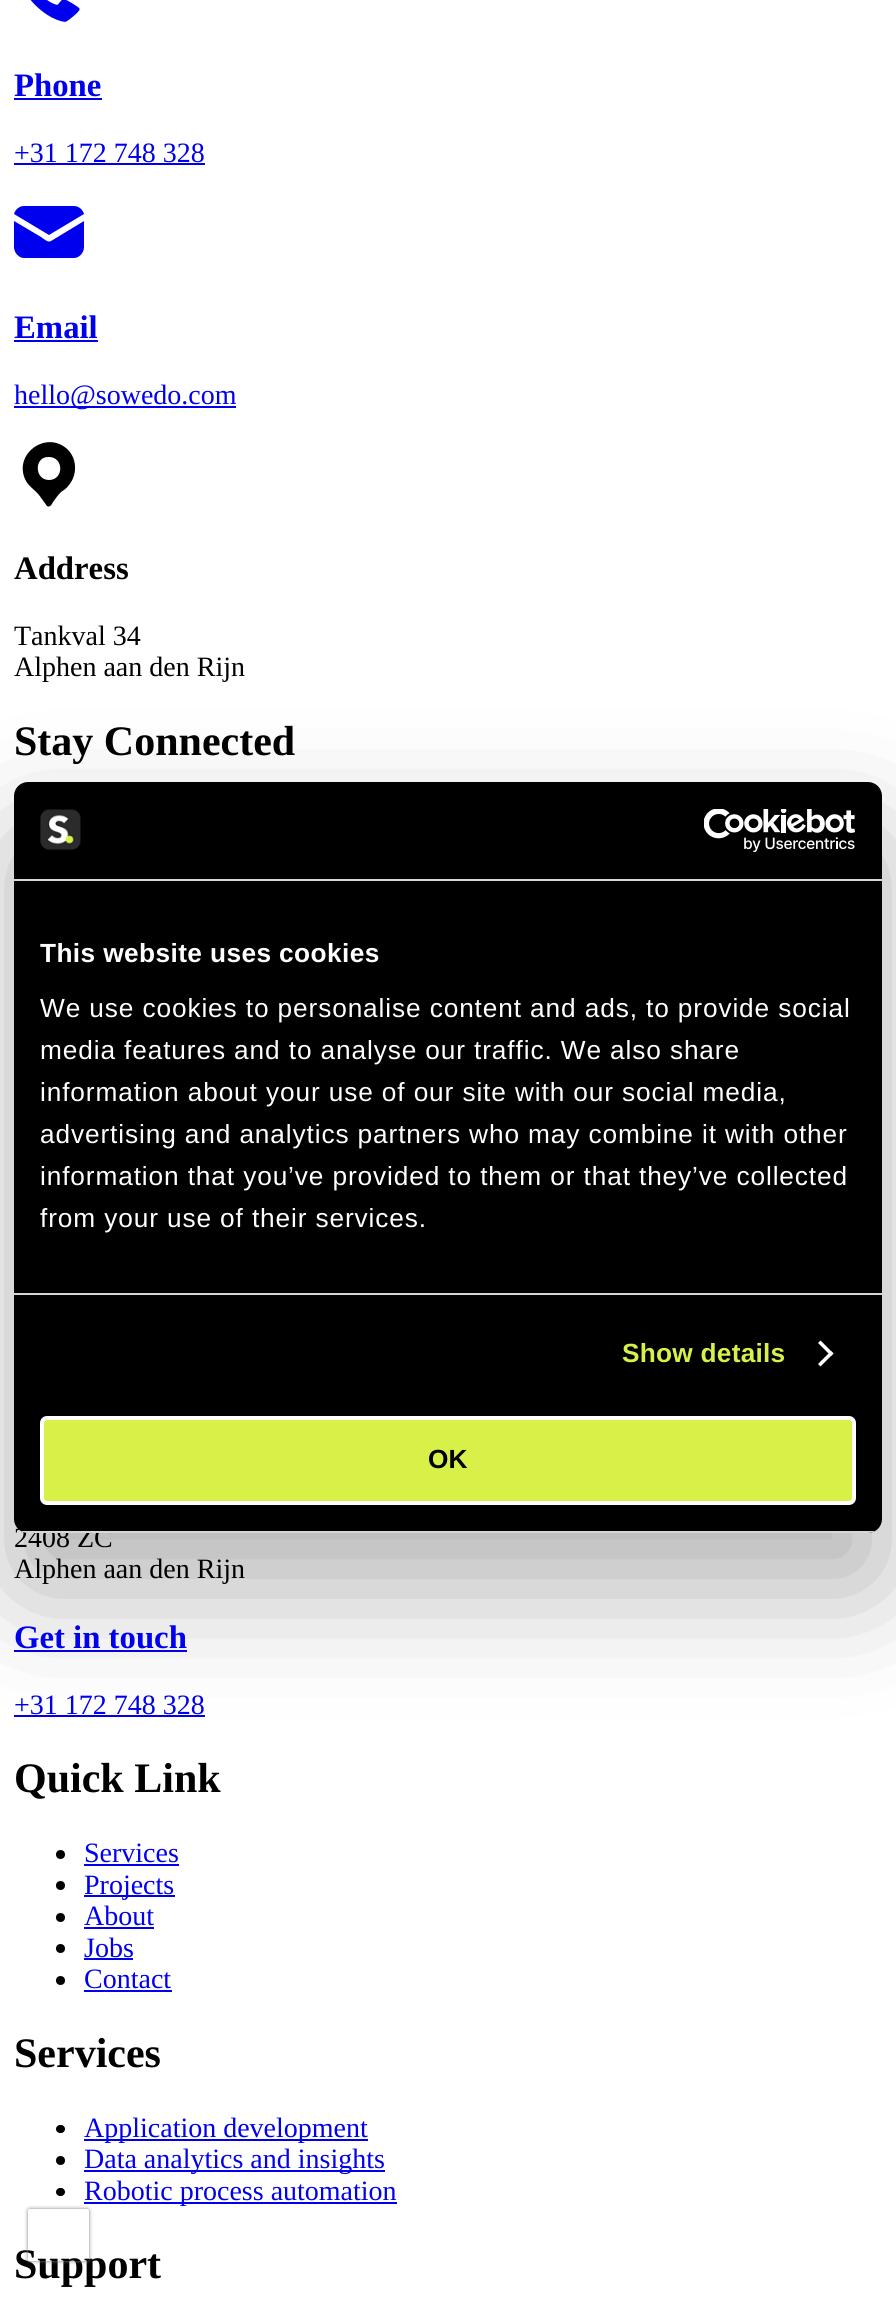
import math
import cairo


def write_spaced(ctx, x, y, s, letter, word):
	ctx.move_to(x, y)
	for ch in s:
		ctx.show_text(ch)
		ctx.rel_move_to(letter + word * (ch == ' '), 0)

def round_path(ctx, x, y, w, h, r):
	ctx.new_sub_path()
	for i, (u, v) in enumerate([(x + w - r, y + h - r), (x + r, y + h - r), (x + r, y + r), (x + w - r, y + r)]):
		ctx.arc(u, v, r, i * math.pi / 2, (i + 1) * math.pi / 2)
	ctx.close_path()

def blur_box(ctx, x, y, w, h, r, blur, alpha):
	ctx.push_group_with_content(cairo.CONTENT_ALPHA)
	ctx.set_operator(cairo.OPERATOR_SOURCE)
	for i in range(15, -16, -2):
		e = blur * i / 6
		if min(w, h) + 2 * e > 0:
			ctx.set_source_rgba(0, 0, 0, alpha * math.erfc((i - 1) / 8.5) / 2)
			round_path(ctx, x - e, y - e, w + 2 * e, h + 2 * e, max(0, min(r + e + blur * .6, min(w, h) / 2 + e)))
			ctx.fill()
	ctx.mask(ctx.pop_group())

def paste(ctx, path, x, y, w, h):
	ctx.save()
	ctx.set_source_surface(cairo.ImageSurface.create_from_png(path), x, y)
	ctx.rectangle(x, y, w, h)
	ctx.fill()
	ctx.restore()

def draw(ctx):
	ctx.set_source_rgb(1, 1, 1)
	ctx.paint()
	paste(ctx, 'media/1.png', 30, 0, 50, 22)
	ctx.select_font_face('Liberation Serif', cairo.FONT_SLANT_NORMAL, cairo.FONT_WEIGHT_BOLD)
	ctx.set_font_size(32.75)
	ctx.set_source_rgb(0, 0, 0.933)
	ctx.move_to(14, 96)
	ctx.show_text('Phone')
	ctx.rectangle(14, 98, 88, 2)
	ctx.fill()
	ctx.select_font_face('Liberation Serif')
	ctx.set_font_size(28)
	ctx.move_to(14, 162)
	ctx.show_text('+31 172 748 328')
	ctx.rectangle(14, 163, 191, 2)
	ctx.fill()
	ctx.new_path()
	ctx.move_to(51, 241)
	ctx.curve_to(48, 243, 44, 239, 41, 237)
	ctx.line_to(14, 221)
	ctx.line_to(14, 247)
	ctx.curve_to(14, 253, 19, 258, 24, 258)
	ctx.line_to(74, 258)
	ctx.curve_to(79, 258, 84, 253, 84, 247)
	ctx.line_to(84, 221)
	ctx.close_path()
	ctx.fill()
	ctx.new_path()
	ctx.move_to(74, 206)
	ctx.line_to(24, 206)
	ctx.curve_to(19, 206, 15, 210, 14, 214)
	ctx.line_to(49, 235)
	ctx.line_to(84, 214)
	ctx.curve_to(83, 210, 79, 206, 74, 206)
	ctx.close_path()
	ctx.fill()
	ctx.select_font_face('Liberation Serif', cairo.FONT_SLANT_NORMAL, cairo.FONT_WEIGHT_BOLD)
	ctx.set_font_size(32.75)
	ctx.move_to(14, 338)
	ctx.show_text('Email')
	ctx.rectangle(14, 340, 84, 2)
	ctx.fill()
	ctx.rectangle(14, 406, 222, 2)
	ctx.fill()
	ctx.select_font_face('Liberation Serif')
	ctx.set_font_size(28)
	ctx.move_to(14, 404)
	ctx.show_text('hello@sowedo.com')
	ctx.set_source_rgb(0, 0, 0)
	ctx.new_path()
	ctx.move_to(66, 448)
	ctx.curve_to(45, 431, 14, 454, 25, 479)
	ctx.curve_to(28, 486, 34, 489, 39, 495)
	ctx.line_to(47, 506)
	ctx.curve_to(50, 508, 52, 504, 53, 502)
	ctx.curve_to(56, 498, 58, 495, 61, 492)
	ctx.curve_to(64, 490, 67, 488, 69, 485)
	ctx.curve_to(78, 474, 77, 457, 66, 448)
	ctx.close_path()
	ctx.move_to(49, 480)
	ctx.curve_to(34, 480, 34, 456, 49, 457)
	ctx.curve_to(64, 457, 64, 480, 49, 480)
	ctx.close_path()
	ctx.fill()
	ctx.select_font_face('Liberation Serif', cairo.FONT_SLANT_NORMAL, cairo.FONT_WEIGHT_BOLD)
	ctx.set_font_size(32.75)
	ctx.move_to(14, 579)
	ctx.show_text('Address')
	ctx.select_font_face('Liberation Serif')
	ctx.set_font_size(28)
	ctx.move_to(14, 645)
	ctx.show_text('Tankval 34')
	ctx.move_to(14, 676)
	ctx.show_text('Alphen aan den Rijn')
	ctx.select_font_face('Liberation Serif', cairo.FONT_SLANT_NORMAL, cairo.FONT_WEIGHT_BOLD)
	ctx.set_font_size(42)
	ctx.move_to(14, 755)
	ctx.show_text('Stay Connected')
	ctx.set_source_rgb(0, 0, 0.933)
	ctx.rectangle(14, 1650, 173, 2)
	ctx.fill()
	ctx.rectangle(14, 1715, 191, 2)
	ctx.fill()
	ctx.set_source_rgb(0, 0, 0)
	blur_box(ctx, 14, 838, 868, 751, 14, 59.5, 0.3)
	ctx.set_source_rgb(0, 0, 0)
	round_path(ctx, 14, 782, 868, 751, 14)
	ctx.fill()
	ctx.set_source_rgb(0.839, 0.839, 0.839)
	ctx.rectangle(14, 879, 868, 2)
	ctx.fill()
	paste(ctx, 'media/2.png', 40, 809, 41, 41)
	paste(ctx, 'media/3.png', 704, 809, 152, 43)
	ctx.rectangle(14, 1293, 868, 2)
	ctx.fill()
	ctx.select_font_face('Liberation Sans', cairo.FONT_SLANT_NORMAL, cairo.FONT_WEIGHT_BOLD)
	ctx.set_font_size(26.25)
	ctx.set_source_rgb(1, 1, 1)
	write_spaced(ctx, 40, 962, 'This website uses cookies', 0.4, 0)
	ctx.select_font_face('Liberation Sans')
	for x, y, s in [
		(40, 1017, 'We use cookies to personalise content and ads, to provide social'),
		(40, 1059, 'media features and to analyse our traffic. We also share'),
		(40, 1101, 'information about your use of our site with our social media,'),
		(40, 1143, 'advertising and analytics partners who may combine it with other'),
		(40, 1185, 'information that you’ve provided to them or that they’ve collected'),
		(40, 1227, 'from your use of their services.'),
	]:
		write_spaced(ctx, x, y, s, 0.88, 0)
	ctx.select_font_face('Liberation Sans', cairo.FONT_SLANT_NORMAL, cairo.FONT_WEIGHT_BOLD)
	ctx.set_source_rgb(0.851, 0.941, 0.282)
	write_spaced(ctx, 622, 1362, 'Show details', 0.25, 0)
	ctx.set_source_rgb(1, 1, 1)
	ctx.new_path()
	ctx.move_to(820.5, 1340.5)
	ctx.line_to(833.5, 1353.5)
	ctx.line_to(831, 1356)
	ctx.line_to(818, 1343)
	ctx.close_path()
	ctx.fill()
	ctx.new_path()
	ctx.move_to(831, 1351)
	ctx.line_to(833.5, 1353.5)
	ctx.line_to(820.5, 1366.5)
	ctx.line_to(818, 1364)
	ctx.close_path()
	ctx.fill()
	ctx.select_font_face('Liberation Serif')
	ctx.set_font_size(28)
	ctx.set_source_rgb(0, 0, 0)
	ctx.move_to(14, 1547)
	ctx.show_text('2408 ZC')
	ctx.save()
	round_path(ctx, 14, 782, 868, 751, 14)
	ctx.clip()
	ctx.set_source_rgb(0.839, 0.839, 0.839)
	ctx.rectangle(14, 1531, 868, 2)
	ctx.fill()
	ctx.restore()
	ctx.set_source_rgb(0.851, 0.941, 0.282)
	round_path(ctx, 42, 1418, 812, 85, 5)
	ctx.fill_preserve()
	ctx.set_source_rgb(1, 1, 1)
	ctx.set_line_width(4)
	ctx.stroke()
	ctx.select_font_face('Liberation Sans', cairo.FONT_SLANT_NORMAL, cairo.FONT_WEIGHT_BOLD)
	ctx.set_font_size(26.25)
	ctx.set_source_rgb(0, 0, 0)
	ctx.move_to(428, 1468)
	ctx.show_text('OK')
	ctx.select_font_face('Liberation Serif')
	ctx.set_font_size(28)
	ctx.move_to(14, 1578)
	ctx.show_text('Alphen aan den Rijn')
	ctx.select_font_face('Liberation Serif', cairo.FONT_SLANT_NORMAL, cairo.FONT_WEIGHT_BOLD)
	ctx.set_font_size(32.75)
	ctx.set_source_rgb(0, 0, 0.933)
	ctx.move_to(14, 1648)
	ctx.show_text('Get in touch')
	ctx.select_font_face('Liberation Serif')
	ctx.set_font_size(28)
	ctx.move_to(14, 1714)
	ctx.show_text('+31 172 748 328')
	ctx.select_font_face('Liberation Serif', cairo.FONT_SLANT_NORMAL, cairo.FONT_WEIGHT_BOLD)
	ctx.set_font_size(42)
	ctx.set_source_rgb(0, 0, 0)
	ctx.move_to(14, 1792)
	ctx.show_text('Quick Link')
	ctx.new_path()
	ctx.arc(60.5, 1854.5, 4.5, 0, 2 * math.pi)
	ctx.fill()
	ctx.select_font_face('Liberation Serif')
	ctx.set_font_size(28)
	ctx.set_source_rgb(0, 0, 0.933)
	ctx.move_to(84, 1862)
	ctx.show_text('Services')
	ctx.rectangle(84, 1864, 95, 2)
	ctx.fill()
	ctx.set_source_rgb(0, 0, 0)
	ctx.arc(60.5, 1885.5, 4.5, 0, 2 * math.pi)
	ctx.fill()
	ctx.set_source_rgb(0, 0, 0.933)
	ctx.rectangle(84, 1895, 91, 2)
	ctx.fill()
	ctx.move_to(84, 1894)
	ctx.show_text('Projects')
	ctx.set_source_rgb(0, 0, 0)
	ctx.new_path()
	ctx.arc(60.5, 1917.5, 4.5, 0, 2 * math.pi)
	ctx.fill()
	ctx.set_source_rgb(0, 0, 0.933)
	ctx.move_to(84, 1925)
	ctx.show_text('About')
	ctx.rectangle(84, 1927, 70, 2)
	ctx.fill()
	ctx.set_source_rgb(0, 0, 0)
	ctx.arc(60.5, 1948.5, 4.5, 0, 2 * math.pi)
	ctx.fill()
	ctx.set_source_rgb(0, 0, 0.933)
	ctx.move_to(84, 1957)
	ctx.show_text('Jobs')
	ctx.rectangle(84, 1958, 49, 2)
	ctx.fill()
	ctx.set_source_rgb(0, 0, 0)
	ctx.arc(60.5, 1980.5, 4.5, 0, 2 * math.pi)
	ctx.fill()
	ctx.set_source_rgb(0, 0, 0.933)
	ctx.move_to(84, 1988)
	ctx.show_text('Contact')
	ctx.rectangle(84, 1990, 88, 2)
	ctx.fill()
	ctx.select_font_face('Liberation Serif', cairo.FONT_SLANT_NORMAL, cairo.FONT_WEIGHT_BOLD)
	ctx.set_font_size(42)
	ctx.set_source_rgb(0, 0, 0)
	ctx.move_to(14, 2067)
	ctx.show_text('Services')
	round_path(ctx, 56, 2125, 9, 8, 4)
	ctx.fill()
	ctx.set_source_rgb(0, 0, 0.933)
	ctx.rectangle(84, 2139, 284, 2)
	ctx.fill()
	ctx.select_font_face('Liberation Serif')
	ctx.set_font_size(28)
	ctx.move_to(84, 2137)
	ctx.show_text('Application development')
	ctx.set_source_rgb(0, 0, 0)
	ctx.new_path()
	ctx.arc(60.5, 2160.5, 4.5, 0, 2 * math.pi)
	ctx.fill()
	ctx.set_source_rgb(0, 0, 0.933)
	ctx.rectangle(84, 2170, 301, 2)
	ctx.fill()
	ctx.move_to(84, 2168)
	ctx.show_text('Data analytics and insights')
	ctx.set_source_rgb(0, 0, 0)
	round_path(ctx, 56, 2188, 9, 8, 4)
	ctx.fill()
	ctx.set_source_rgb(0, 0, 0.933)
	ctx.rectangle(84, 2202, 313, 2)
	ctx.fill()
	ctx.move_to(84, 2200)
	ctx.show_text('Robotic process automation')
	ctx.select_font_face('Liberation Serif', cairo.FONT_SLANT_NORMAL, cairo.FONT_WEIGHT_BOLD)
	ctx.set_font_size(42)
	ctx.set_source_rgb(0, 0, 0)
	ctx.move_to(14, 2278)
	ctx.show_text('Support')
	ctx.save()
	ctx.set_fill_rule(cairo.FILL_RULE_EVEN_ODD)
	ctx.new_path()
	ctx.move_to(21, 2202)
	ctx.line_to(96, 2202)
	ctx.line_to(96, 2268)
	ctx.line_to(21, 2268)
	ctx.close_path()
	ctx.move_to(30, 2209)
	ctx.line_to(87, 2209)
	ctx.curve_to(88, 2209, 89, 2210, 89, 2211)
	ctx.line_to(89, 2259)
	ctx.curve_to(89, 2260, 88, 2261, 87, 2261)
	ctx.line_to(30, 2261)
	ctx.curve_to(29, 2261, 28, 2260, 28, 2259)
	ctx.line_to(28, 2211)
	ctx.curve_to(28, 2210, 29, 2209, 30, 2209)
	ctx.close_path()
	ctx.clip()
	ctx.set_source_rgb(0.502, 0.502, 0.502)
	blur_box(ctx, 28, 2209, 61, 52, 2, 2, 1)
	ctx.restore()


surface = cairo.ImageSurface(cairo.FORMAT_RGB24, 896, 2311)
ctx = cairo.Context(surface)
options = cairo.FontOptions()
options.set_hint_metrics(cairo.HINT_METRICS_OFF)
options.set_hint_style(cairo.HINT_STYLE_NONE)
ctx.set_font_options(options)
ctx.set_miter_limit(4)
draw(ctx)
surface.write_to_png('image.png')
